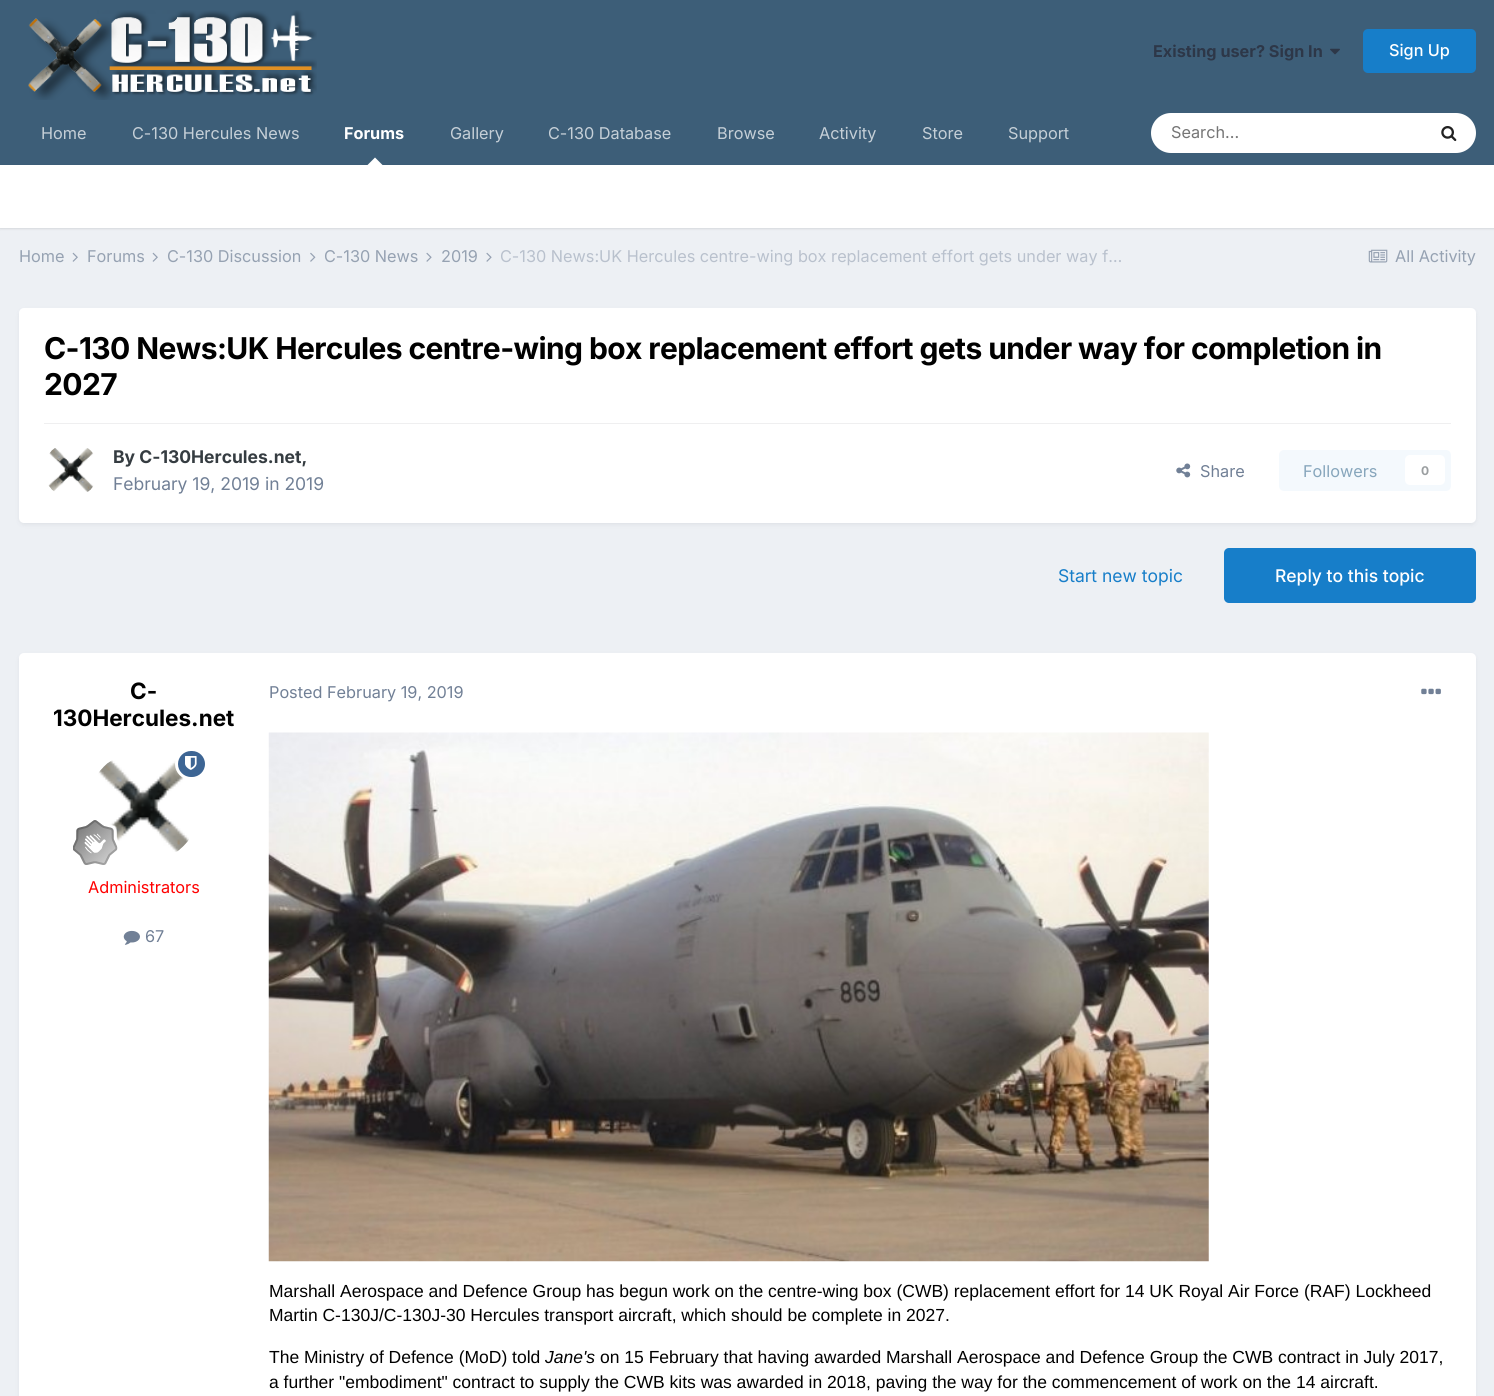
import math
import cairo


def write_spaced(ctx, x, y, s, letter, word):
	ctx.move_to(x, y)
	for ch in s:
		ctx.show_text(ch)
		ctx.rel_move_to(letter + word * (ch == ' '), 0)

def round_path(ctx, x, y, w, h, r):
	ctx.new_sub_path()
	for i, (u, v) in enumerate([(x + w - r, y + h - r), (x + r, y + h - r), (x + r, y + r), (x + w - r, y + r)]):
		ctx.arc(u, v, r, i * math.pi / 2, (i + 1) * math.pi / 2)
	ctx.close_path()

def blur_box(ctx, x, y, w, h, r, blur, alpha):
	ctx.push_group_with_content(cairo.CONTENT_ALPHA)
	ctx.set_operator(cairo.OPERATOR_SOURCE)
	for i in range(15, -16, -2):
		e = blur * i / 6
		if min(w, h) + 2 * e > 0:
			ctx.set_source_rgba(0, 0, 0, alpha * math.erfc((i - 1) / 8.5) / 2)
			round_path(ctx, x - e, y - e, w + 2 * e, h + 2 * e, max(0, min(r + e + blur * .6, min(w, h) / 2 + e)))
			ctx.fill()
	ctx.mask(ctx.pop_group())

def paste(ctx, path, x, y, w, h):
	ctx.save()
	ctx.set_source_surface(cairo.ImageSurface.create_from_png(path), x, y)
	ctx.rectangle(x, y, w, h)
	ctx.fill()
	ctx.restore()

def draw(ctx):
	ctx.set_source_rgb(0.929, 0.941, 0.957)
	ctx.paint()
	ctx.set_source_rgb(0.239, 0.369, 0.471)
	ctx.rectangle(0, 0, 1494, 165)
	ctx.fill()
	paste(ctx, 'media/1.png', 28, 10, 289, 90)
	ctx.select_font_face('Inter', cairo.FONT_SLANT_NORMAL, cairo.FONT_WEIGHT_BOLD)
	ctx.set_font_size(16.25)
	ctx.set_source_rgb(0.176, 0.216, 0.282)
	ctx.move_to(1153, 57)
	ctx.show_text('Existing user? Sign In')
	paste(ctx, 'media/2.png', 1330, 48, 10, 7)
	ctx.set_source_rgb(0.09, 0.494, 0.788)
	round_path(ctx, 1363, 29, 113, 44, 5)
	ctx.fill()
	ctx.select_font_face('Inter Medium')
	ctx.set_source_rgb(1, 1, 1)
	ctx.move_to(1389, 56)
	ctx.show_text('Sign Up')
	ctx.select_font_face('Inter')
	ctx.set_source_rgb(0.773, 0.812, 0.843)
	ctx.move_to(41, 139)
	ctx.show_text('Home')
	ctx.move_to(132, 139)
	ctx.show_text('C-130 Hercules News')
	ctx.select_font_face('Inter', cairo.FONT_SLANT_NORMAL, cairo.FONT_WEIGHT_BOLD)
	ctx.set_source_rgb(1, 1, 1)
	ctx.move_to(344, 139)
	ctx.show_text('Forums')
	ctx.set_source_rgb(0, 0, 0)
	blur_box(ctx, 0, 166, 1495, 63, 0, 1, 0.1)
	ctx.set_source_rgb(1, 1, 1)
	ctx.new_path()
	ctx.move_to(382.5, 165)
	ctx.line_to(367.5, 165)
	ctx.line_to(375, 157.5)
	ctx.close_path()
	ctx.fill()
	ctx.select_font_face('Inter')
	ctx.set_source_rgb(0.773, 0.812, 0.843)
	for x, y, s in [
		(450, 139, 'Gallery'),
		(548, 139, 'C-130 Database'),
		(717, 139, 'Browse'),
		(819, 139, 'Activity'),
		(922, 139, 'Store'),
		(1008, 139, 'Support'),
	]:
		ctx.move_to(x, y)
		ctx.show_text(s)
	ctx.set_source_rgb(1, 1, 1)
	round_path(ctx, 1151, 113, 325, 40, 20)
	ctx.fill()
	ctx.set_source_rgb(0.459, 0.459, 0.459)
	ctx.move_to(1171, 138)
	ctx.show_text('Search...')
	paste(ctx, 'media/3.png', 1441, 126, 16, 16)
	ctx.set_source_rgb(1, 1, 1)
	ctx.rectangle(0, 165, 1494, 63)
	ctx.fill()
	ctx.set_source_rgb(0.588, 0.635, 0.698)
	ctx.move_to(19, 262)
	ctx.show_text('Home')
	paste(ctx, 'media/4.png', 72, 252, 6, 10)
	ctx.move_to(87, 262)
	ctx.show_text('Forums')
	paste(ctx, 'media/4.png', 152, 252, 6, 10)
	ctx.move_to(167, 262)
	ctx.show_text('C-130 Discussion')
	paste(ctx, 'media/5.png', 310, 252, 6, 10)
	ctx.move_to(324, 262)
	ctx.show_text('C-130 News')
	paste(ctx, 'media/6.png', 426, 252, 6, 10)
	ctx.move_to(441, 262)
	ctx.show_text('2019')
	paste(ctx, 'media/6.png', 486, 252, 6, 10)
	ctx.set_source_rgb(0.725, 0.757, 0.804)
	ctx.move_to(500, 262)
	ctx.show_text('C-130 News:UK Hercules centre-wing box replacement effort gets under way f…')
	paste(ctx, 'media/7.png', 1368, 249, 20, 14)
	ctx.set_source_rgb(0.588, 0.635, 0.698)
	ctx.move_to(1395, 262)
	ctx.show_text('All Activity')
	ctx.set_source_rgb(0.176, 0.216, 0.282)
	blur_box(ctx, 20, 311, 1455, 213, 4, 2.5, 0.1)
	ctx.set_source_rgb(1, 1, 1)
	round_path(ctx, 19, 308, 1457, 215, 5)
	ctx.fill()
	ctx.select_font_face('Inter', cairo.FONT_SLANT_NORMAL, cairo.FONT_WEIGHT_BOLD)
	ctx.set_font_size(30)
	ctx.set_source_rgb(0, 0, 0)
	write_spaced(ctx, 44, 359, 'C-130 News:UK Hercules centre-wing box replacement effort gets under way for completion in', -0.6, 0)
	write_spaced(ctx, 44, 395, '2027', -0.6, 0)
	ctx.set_source_rgb(0.937, 0.937, 0.941)
	ctx.rectangle(44, 423, 1407, 1)
	ctx.fill()
	paste(ctx, 'media/8.png', 48, 448, 46, 44)
	ctx.set_font_size(17.5)
	ctx.set_source_rgb(0.208, 0.235, 0.255)
	ctx.move_to(113, 463)
	ctx.show_text('By C-130Hercules.net,')
	ctx.select_font_face('Inter')
	ctx.set_source_rgb(0.443, 0.502, 0.588)
	ctx.move_to(113, 490)
	ctx.show_text('February 19, 2019 in 2019')
	paste(ctx, 'media/9.png', 1176, 463, 15, 15)
	ctx.set_font_size(16.25)
	ctx.move_to(1200, 477)
	ctx.show_text('Share')
	ctx.set_source_rgb(0.957, 0.976, 0.992)
	round_path(ctx, 1279, 450, 172, 41, 5)
	ctx.fill()
	ctx.set_source_rgb(0.529, 0.651, 0.737)
	ctx.move_to(1303, 477)
	ctx.show_text('Followers')
	ctx.set_source_rgb(1, 1, 1)
	round_path(ctx, 1405, 455, 40, 30, 5)
	ctx.fill()
	ctx.select_font_face('Inter', cairo.FONT_SLANT_NORMAL, cairo.FONT_WEIGHT_BOLD)
	ctx.set_font_size(12)
	ctx.set_source_rgb(0.604, 0.62, 0.627)
	ctx.move_to(1421, 475)
	ctx.show_text('0')
	ctx.select_font_face('Inter')
	ctx.set_font_size(17.5)
	ctx.set_source_rgb(0.09, 0.494, 0.788)
	ctx.move_to(1058, 582)
	ctx.show_text('Start new topic')
	round_path(ctx, 1224, 548, 252, 55, 5)
	ctx.fill()
	ctx.select_font_face('Inter Medium')
	ctx.set_source_rgb(1, 1, 1)
	ctx.move_to(1275, 582)
	ctx.show_text('Reply to this topic')
	ctx.set_source_rgb(0.176, 0.216, 0.282)
	blur_box(ctx, 20, 656, 1455, 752, 4, 2.5, 0.1)
	ctx.set_source_rgb(1, 1, 1)
	round_path(ctx, 19, 653, 1457, 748, 5)
	ctx.fill()
	ctx.select_font_face('Inter', cairo.FONT_SLANT_NORMAL, cairo.FONT_WEIGHT_BOLD)
	ctx.set_font_size(22.5)
	ctx.set_source_rgb(0, 0, 0)
	ctx.move_to(130, 699)
	ctx.show_text('C-')
	ctx.move_to(53, 726)
	ctx.show_text('130Hercules.net')
	paste(ctx, 'media/11.png', 97, 760, 92, 92)
	paste(ctx, 'media/10.png', 73, 820, 46, 45)
	ctx.set_source_rgb(0.239, 0.396, 0.58)
	round_path(ctx, 176.5, 749.5, 30, 29, 14.5)
	ctx.fill_preserve()
	ctx.set_source_rgb(1, 1, 1)
	ctx.set_line_width(3)
	ctx.stroke()
	paste(ctx, 'media/12.png', 185, 756, 12, 14)
	ctx.select_font_face('Inter')
	ctx.set_font_size(16.25)
	ctx.set_source_rgb(1, 0, 0)
	ctx.move_to(88, 893)
	ctx.show_text('Administrators')
	paste(ctx, 'media/13.png', 123, 930, 17, 15)
	ctx.set_source_rgb(0.443, 0.502, 0.588)
	ctx.move_to(145, 942)
	ctx.show_text('67')
	ctx.move_to(269, 698)
	ctx.show_text('Posted February 19, 2019')
	paste(ctx, 'media/14.png', 1421, 688, 20, 7)
	paste(ctx, 'media/15.png', 268, 732, 941, 530)
	ctx.select_font_face('Liberation Sans')
	ctx.set_font_size(17.5)
	ctx.set_source_rgb(0, 0, 0)
	for x, y, s in [
		(269, 1297, 'Marshall Aerospace and Defence Group has begun work on the centre-wing box (CWB) replacement effort for 14 UK Royal Air Force (RAF) Lockheed'),
		(269, 1321, 'Martin C-130J/C-130J-30 Hercules transport aircraft, which should be complete in 2027.'),
		(269, 1363, 'The Ministry of Defence (MoD) told'),
	]:
		ctx.move_to(x, y)
		ctx.show_text(s)
	ctx.select_font_face('Liberation Sans', cairo.FONT_SLANT_ITALIC)
	ctx.move_to(545, 1363)
	ctx.show_text('Jane\'s')
	ctx.select_font_face('Liberation Sans')
	ctx.move_to(600, 1363)
	ctx.show_text('on 15 February that having awarded Marshall Aerospace and Defence Group the CWB contract in July 2017,')
	ctx.move_to(269, 1388)
	ctx.show_text('a further "embodiment" contract to supply the CWB kits was awarded in 2018, paving the way for the commencement of work on the 14 aircraft.')


surface = cairo.ImageSurface(cairo.FORMAT_RGB24, 1494, 1396)
ctx = cairo.Context(surface)
options = cairo.FontOptions()
options.set_hint_metrics(cairo.HINT_METRICS_OFF)
options.set_hint_style(cairo.HINT_STYLE_NONE)
ctx.set_font_options(options)
ctx.set_miter_limit(4)
draw(ctx)
surface.write_to_png('image.png')
